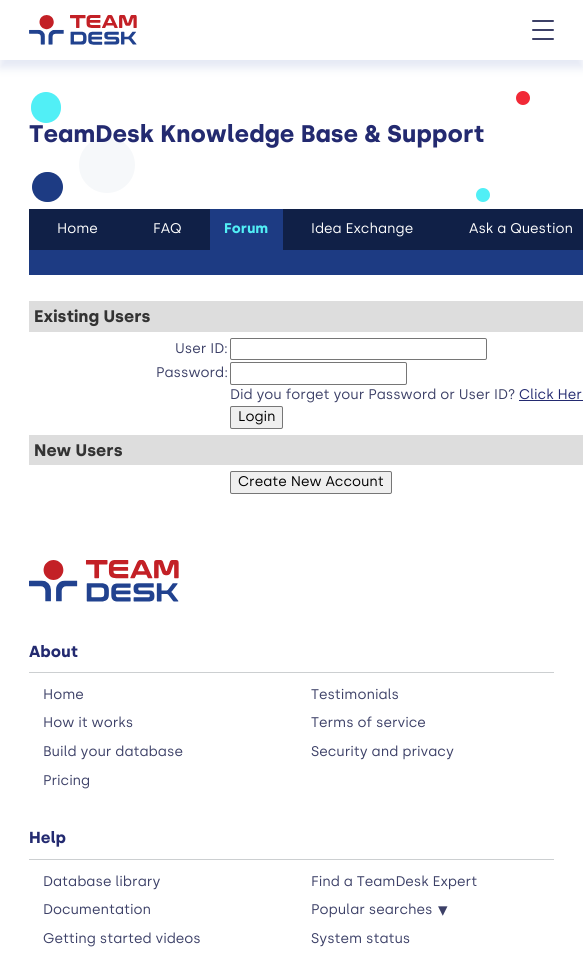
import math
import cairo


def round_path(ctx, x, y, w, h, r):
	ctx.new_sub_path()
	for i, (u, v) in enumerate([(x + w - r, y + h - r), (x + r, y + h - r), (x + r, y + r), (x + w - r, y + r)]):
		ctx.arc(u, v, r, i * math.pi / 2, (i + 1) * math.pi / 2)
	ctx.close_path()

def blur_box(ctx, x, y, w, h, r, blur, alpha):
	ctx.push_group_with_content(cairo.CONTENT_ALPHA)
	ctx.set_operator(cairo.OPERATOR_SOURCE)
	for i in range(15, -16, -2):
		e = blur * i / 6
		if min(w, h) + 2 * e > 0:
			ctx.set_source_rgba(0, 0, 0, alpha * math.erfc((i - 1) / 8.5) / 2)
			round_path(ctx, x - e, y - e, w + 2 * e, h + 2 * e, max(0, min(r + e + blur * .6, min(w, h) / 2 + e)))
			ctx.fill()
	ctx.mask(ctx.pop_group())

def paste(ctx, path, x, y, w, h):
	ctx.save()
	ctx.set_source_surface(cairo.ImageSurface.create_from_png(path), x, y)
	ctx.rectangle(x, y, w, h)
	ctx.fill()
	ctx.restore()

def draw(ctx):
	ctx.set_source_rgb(1, 1, 1)
	ctx.paint()
	ctx.save()
	ctx.rectangle(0, 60, 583, 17)
	ctx.clip()
	ctx.set_source_rgb(0.898, 0.914, 0.957)
	blur_box(ctx, 0, 8, 583, 60, 0, 4.5, 1)
	ctx.restore()
	paste(ctx, 'media/1.png', 29, 15, 108, 30)
	ctx.set_source_rgb(0.235, 0.251, 0.404)
	round_path(ctx, 532, 29, 22, 2, 1)
	ctx.fill()
	round_path(ctx, 532, 20, 22, 2, 1)
	ctx.fill()
	round_path(ctx, 532, 38, 22, 2, 1)
	ctx.fill()
	ctx.set_source_rgb(0.318, 0.937, 0.961)
	round_path(ctx, 31, 92, 30, 31, 15)
	ctx.fill()
	ctx.set_source_rgb(0.945, 0.161, 0.216)
	ctx.arc(523, 98, 7, 0, 2 * math.pi)
	ctx.fill()
	ctx.set_source_rgb(0.114, 0.231, 0.514)
	round_path(ctx, 32, 172, 31, 30, 15)
	ctx.fill()
	ctx.set_source_rgb(0.961, 0.969, 0.98)
	ctx.arc(107, 165, 28, 0, 2 * math.pi)
	ctx.fill()
	ctx.set_source_rgb(0.318, 0.937, 0.961)
	ctx.arc(483, 195, 7, 0, 2 * math.pi)
	ctx.fill()
	ctx.select_font_face('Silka', cairo.FONT_SLANT_NORMAL, cairo.FONT_WEIGHT_BOLD)
	ctx.set_font_size(24)
	ctx.set_source_rgb(0.137, 0.165, 0.439)
	ctx.move_to(29, 142)
	ctx.show_text('TeamDesk Knowledge Base & Support')
	ctx.set_source_rgb(0.063, 0.125, 0.278)
	ctx.rectangle(29, 209, 181, 41)
	ctx.fill()
	ctx.select_font_face('Silka')
	ctx.set_font_size(14)
	ctx.set_source_rgb(1, 1, 1)
	ctx.move_to(57, 233)
	ctx.show_text('Home')
	ctx.move_to(153, 233)
	ctx.show_text('FAQ')
	ctx.set_source_rgb(0.114, 0.231, 0.514)
	ctx.rectangle(210, 209, 73, 41)
	ctx.fill()
	ctx.select_font_face('Silka', cairo.FONT_SLANT_NORMAL, cairo.FONT_WEIGHT_BOLD)
	ctx.set_source_rgb(0.318, 0.937, 0.961)
	ctx.move_to(224, 233)
	ctx.show_text('Forum')
	ctx.set_source_rgb(0.063, 0.125, 0.278)
	ctx.rectangle(283, 209, 300, 41)
	ctx.fill()
	ctx.select_font_face('Silka')
	ctx.set_source_rgb(1, 1, 1)
	ctx.move_to(311, 233)
	ctx.show_text('Idea Exchange')
	ctx.move_to(469, 233)
	ctx.show_text('Ask a Question')
	ctx.set_source_rgb(0.114, 0.231, 0.514)
	ctx.rectangle(29, 250, 554, 25)
	ctx.fill()
	ctx.set_source_rgb(0.867, 0.867, 0.867)
	ctx.rectangle(29, 301, 554, 31)
	ctx.fill()
	ctx.select_font_face('Silka', cairo.FONT_SLANT_NORMAL, cairo.FONT_WEIGHT_BOLD)
	ctx.set_font_size(16.75)
	ctx.set_source_rgb(0.2, 0.2, 0.2)
	ctx.move_to(34, 322)
	ctx.show_text('Existing Users')
	ctx.select_font_face('Silka')
	ctx.set_font_size(14)
	ctx.set_source_rgb(0.235, 0.251, 0.404)
	ctx.move_to(175, 353)
	ctx.show_text('User ID:')
	round_path(ctx, 230.5, 338.5, 256, 21, 1.5)
	ctx.set_source_rgb(0.463, 0.463, 0.463)
	ctx.set_line_width(1)
	ctx.stroke()
	ctx.set_source_rgb(0.235, 0.251, 0.404)
	ctx.move_to(156, 377)
	ctx.show_text('Password:')
	round_path(ctx, 230.5, 362.5, 176, 22, 1.5)
	ctx.set_source_rgb(0.463, 0.463, 0.463)
	ctx.stroke()
	ctx.set_source_rgb(0.235, 0.251, 0.404)
	ctx.move_to(230, 399)
	ctx.show_text('Did you forget your Password or User ID?')
	ctx.set_source_rgb(0.137, 0.165, 0.439)
	ctx.move_to(519, 399)
	ctx.show_text('Click Her')
	ctx.rectangle(519, 400, 64, 1)
	ctx.fill()
	ctx.set_source_rgb(0.937, 0.937, 0.937)
	round_path(ctx, 230.5, 406.5, 52, 22, 1.5)
	ctx.fill_preserve()
	ctx.set_source_rgb(0.463, 0.463, 0.463)
	ctx.stroke()
	ctx.set_source_rgb(0, 0, 0)
	ctx.move_to(238, 421)
	ctx.show_text('Login')
	ctx.set_source_rgb(0.867, 0.867, 0.867)
	ctx.rectangle(29, 435, 554, 30)
	ctx.fill()
	ctx.select_font_face('Silka', cairo.FONT_SLANT_NORMAL, cairo.FONT_WEIGHT_BOLD)
	ctx.set_font_size(16.75)
	ctx.set_source_rgb(0.2, 0.2, 0.2)
	ctx.move_to(34, 456)
	ctx.show_text('New Users')
	ctx.set_source_rgb(0.937, 0.937, 0.937)
	round_path(ctx, 230.5, 471.5, 161, 22, 1.5)
	ctx.fill_preserve()
	ctx.set_source_rgb(0.463, 0.463, 0.463)
	ctx.stroke()
	ctx.select_font_face('Silka')
	ctx.set_font_size(14)
	ctx.set_source_rgb(0, 0, 0)
	ctx.move_to(238, 486)
	ctx.show_text('Create New Account')
	paste(ctx, 'media/2.png', 29, 560, 150, 42)
	ctx.set_source_rgb(0.8, 0.812, 0.82)
	ctx.rectangle(29, 672, 525, 1)
	ctx.fill()
	ctx.select_font_face('Silka', cairo.FONT_SLANT_NORMAL, cairo.FONT_WEIGHT_BOLD)
	ctx.set_font_size(16)
	ctx.set_source_rgb(0.137, 0.165, 0.439)
	ctx.move_to(29, 657)
	ctx.show_text('About')
	ctx.select_font_face('Silka')
	ctx.set_font_size(14)
	ctx.set_source_rgb(0.235, 0.251, 0.404)
	for x, y, s in [
		(43, 699, 'Home'),
		(311, 699, 'Testimonials'),
		(43, 727, 'How it works'),
		(311, 727, 'Terms of service'),
		(43, 756, 'Build your database'),
		(311, 756, 'Security and privacy'),
		(43, 785, 'Pricing'),
	]:
		ctx.move_to(x, y)
		ctx.show_text(s)
	ctx.set_source_rgb(0.8, 0.812, 0.82)
	ctx.rectangle(29, 859, 525, 1)
	ctx.fill()
	ctx.select_font_face('Silka', cairo.FONT_SLANT_NORMAL, cairo.FONT_WEIGHT_BOLD)
	ctx.set_font_size(16)
	ctx.set_source_rgb(0.137, 0.165, 0.439)
	ctx.move_to(29, 843)
	ctx.show_text('Help')
	ctx.select_font_face('Silka')
	ctx.set_font_size(14)
	ctx.set_source_rgb(0.235, 0.251, 0.404)
	for x, y, s in [
		(43, 886, 'Database library'),
		(311, 886, 'Find a TeamDesk Expert'),
		(43, 914, 'Documentation'),
		(311, 914, 'Popular searches'),
	]:
		ctx.move_to(x, y)
		ctx.show_text(s)
	ctx.select_font_face('DejaVu Sans')
	ctx.set_font_size(19)
	ctx.move_to(438, 916)
	ctx.show_text('▾')
	ctx.select_font_face('Silka')
	ctx.set_font_size(14)
	ctx.move_to(43, 943)
	ctx.show_text('Getting started videos')
	ctx.move_to(311, 943)
	ctx.show_text('System status')


surface = cairo.ImageSurface(cairo.FORMAT_RGB24, 583, 968)
ctx = cairo.Context(surface)
options = cairo.FontOptions()
options.set_hint_metrics(cairo.HINT_METRICS_OFF)
options.set_hint_style(cairo.HINT_STYLE_NONE)
ctx.set_font_options(options)
ctx.set_miter_limit(4)
draw(ctx)
surface.write_to_png('image.png')
